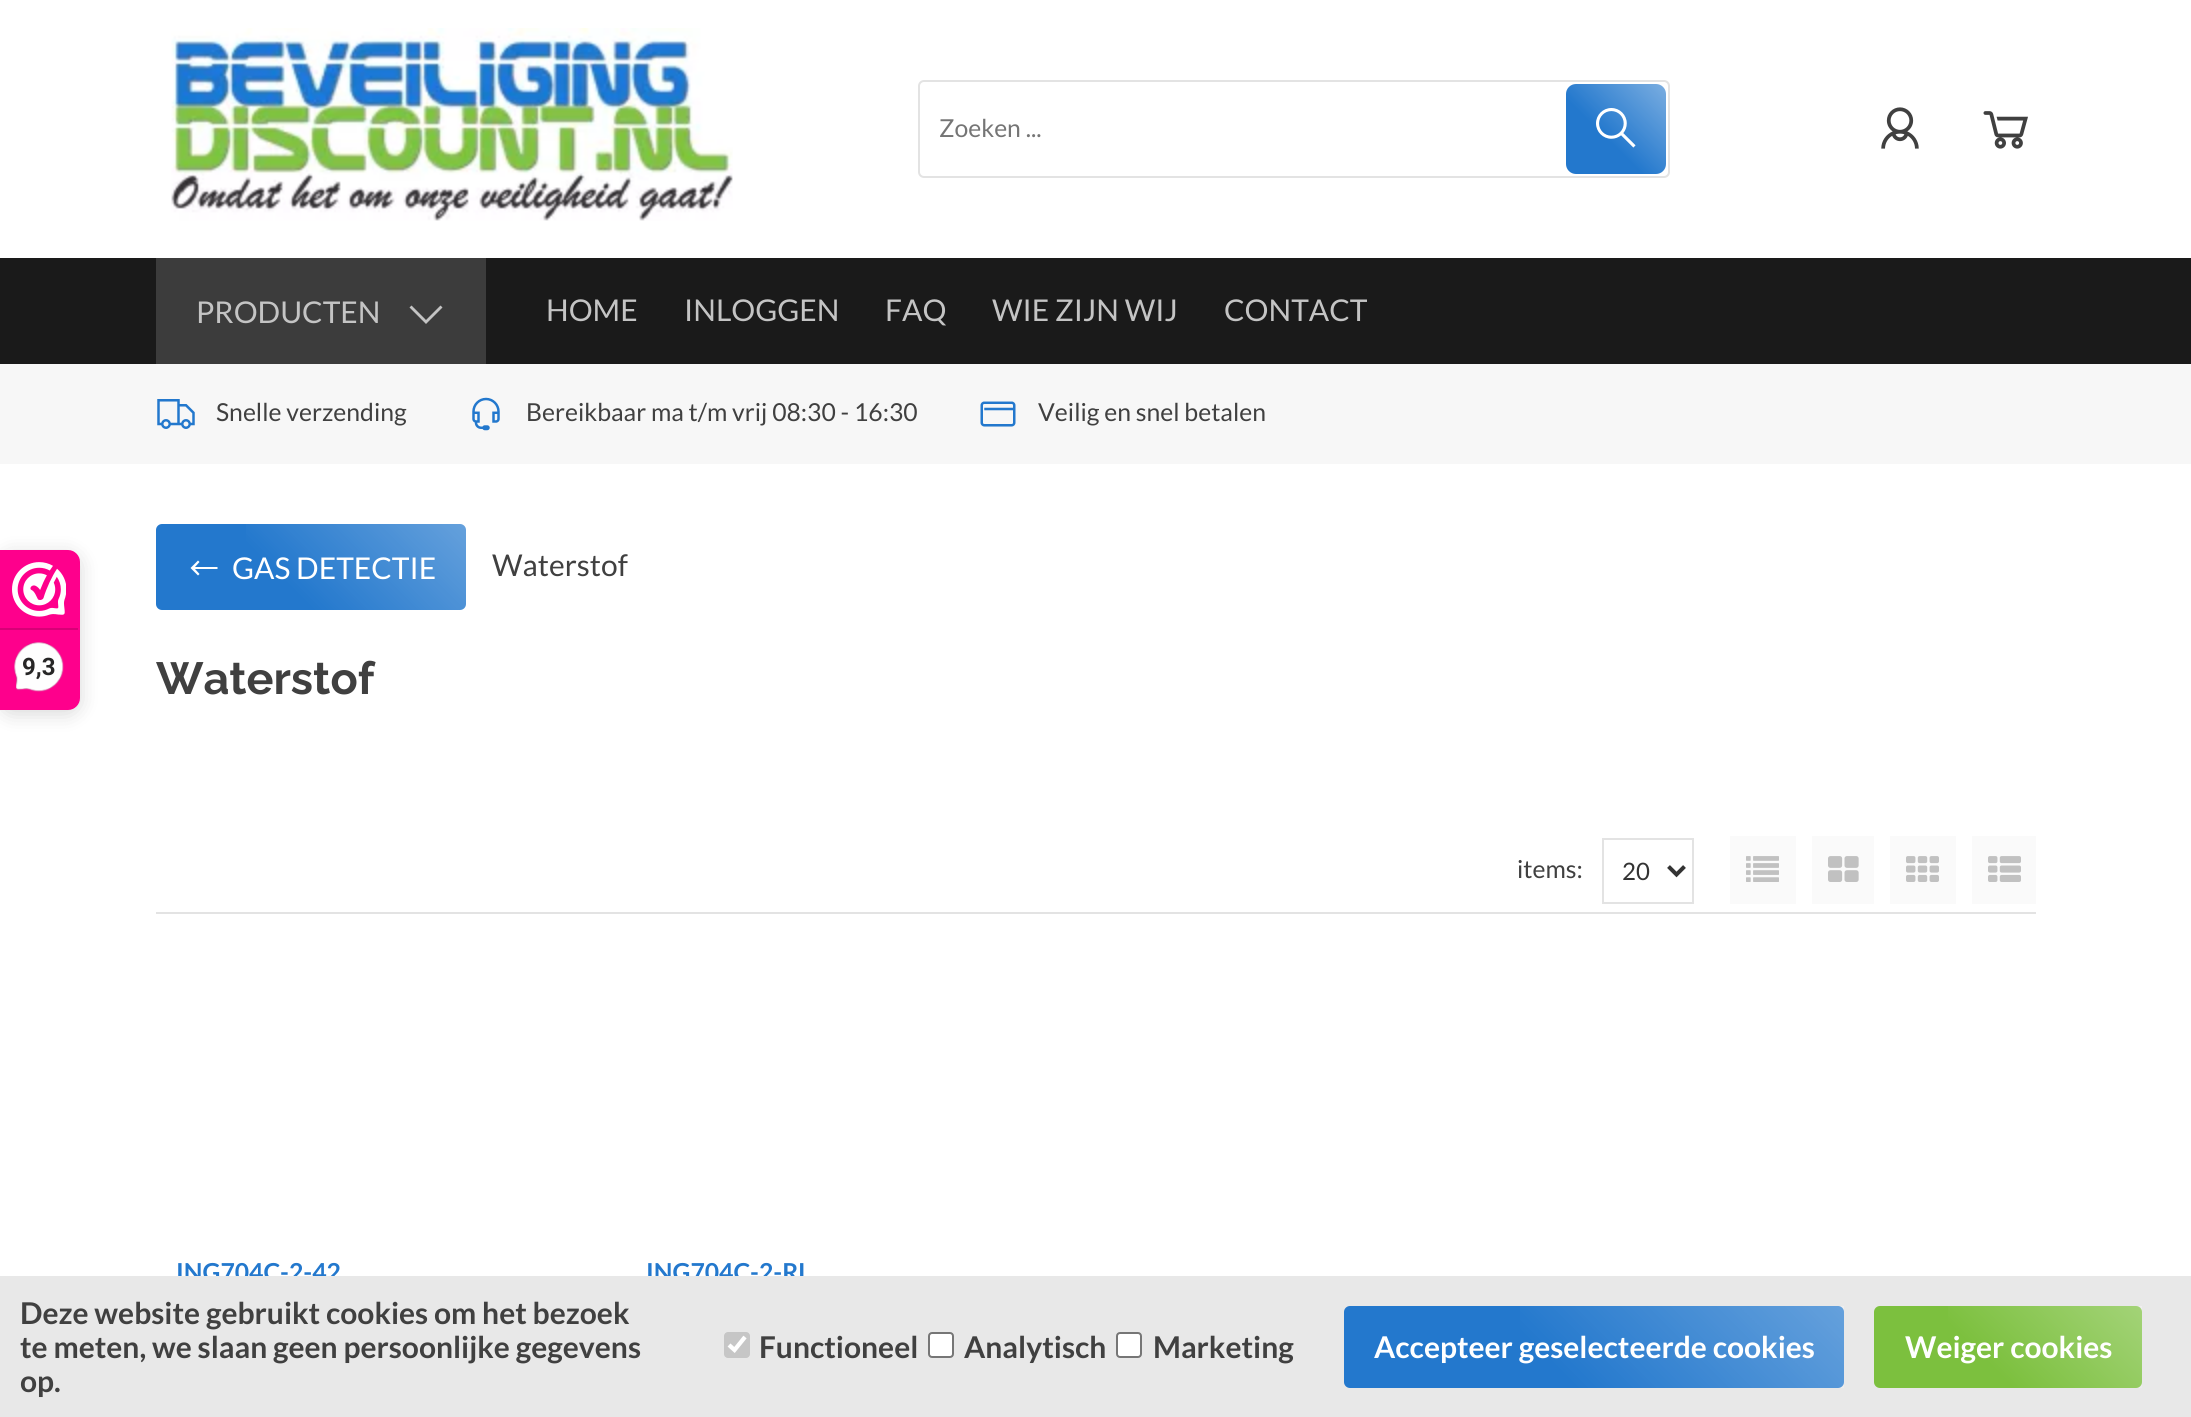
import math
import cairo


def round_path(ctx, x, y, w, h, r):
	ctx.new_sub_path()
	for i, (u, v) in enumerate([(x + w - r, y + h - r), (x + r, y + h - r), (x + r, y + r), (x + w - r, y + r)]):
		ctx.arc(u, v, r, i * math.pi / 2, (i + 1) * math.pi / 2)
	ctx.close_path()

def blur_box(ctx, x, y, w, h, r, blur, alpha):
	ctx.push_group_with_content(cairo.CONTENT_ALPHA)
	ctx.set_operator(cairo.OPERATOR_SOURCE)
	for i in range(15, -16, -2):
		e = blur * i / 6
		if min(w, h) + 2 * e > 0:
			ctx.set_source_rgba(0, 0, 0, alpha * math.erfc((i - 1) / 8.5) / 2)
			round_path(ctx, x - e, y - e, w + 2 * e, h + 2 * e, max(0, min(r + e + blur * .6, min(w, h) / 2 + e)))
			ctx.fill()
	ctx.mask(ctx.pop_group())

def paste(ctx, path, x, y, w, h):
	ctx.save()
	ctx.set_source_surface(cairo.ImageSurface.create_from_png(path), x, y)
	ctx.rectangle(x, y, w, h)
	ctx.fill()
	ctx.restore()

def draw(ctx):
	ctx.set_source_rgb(1, 1, 1)
	ctx.paint()
	paste(ctx, 'media/1.png', 171, 28, 562, 193)
	round_path(ctx, 919, 81, 750, 96, 5)
	ctx.set_source_rgb(0.89, 0.89, 0.89)
	ctx.stroke()
	ctx.select_font_face('Lato')
	ctx.set_font_size(24.75)
	ctx.set_source_rgb(0.459, 0.459, 0.459)
	ctx.move_to(939, 137)
	ctx.show_text('Zoeken ...')
	ctx.set_source_rgb(0.137, 0.471, 0.804)
	round_path(ctx, 1566, 84, 100, 90, 10)
	ctx.fill()
	gradient = cairo.LinearGradient(1664, 81, 1569, 177)
	gradient.add_color_stop_rgba(0, 1, 1, 1, 0.4)
	gradient.add_color_stop_rgba(0.6, 1, 1, 1, 0)
	ctx.set_source(gradient)
	ctx.rectangle(1566, 84, 100, 90)
	ctx.fill()
	paste(ctx, 'media/2.png', 1596, 108, 40, 40)
	paste(ctx, 'media/3.png', 1881, 107, 38, 42)
	paste(ctx, 'media/4.png', 1983, 111, 45, 38)
	ctx.set_source_rgb(0.102, 0.102, 0.102)
	ctx.rectangle(0, 258, 2191, 106)
	ctx.fill()
	ctx.set_source_rgb(0.235, 0.235, 0.235)
	ctx.rectangle(156, 258, 330, 106)
	ctx.fill()
	ctx.set_font_size(30)
	ctx.set_source_rgb(0.769, 0.769, 0.769)
	ctx.move_to(196, 323)
	ctx.show_text('PRODUCTEN')
	ctx.new_path()
	ctx.move_to(411.5, 305.5)
	ctx.line_to(409.5, 307.5)
	ctx.line_to(426, 324)
	ctx.line_to(442.5, 307.5)
	ctx.line_to(440.5, 305.5)
	ctx.line_to(426, 320)
	ctx.close_path()
	ctx.fill()
	for x, y, s in [
		(546, 321, 'HOME'),
		(684, 321, 'INLOGGEN'),
		(885, 321, 'FAQ'),
		(992, 321, 'WIE ZIJN WIJ'),
		(1224, 321, 'CONTACT'),
	]:
		ctx.move_to(x, y)
		ctx.show_text(s)
	ctx.set_source_rgb(0.965, 0.965, 0.965)
	ctx.rectangle(0, 364, 2191, 100)
	ctx.fill()
	paste(ctx, 'media/5.png', 157, 399, 38, 30)
	ctx.set_font_size(24.75)
	ctx.set_source_rgb(0.251, 0.251, 0.251)
	ctx.move_to(216, 421)
	ctx.show_text('Snelle verzending')
	paste(ctx, 'media/6.png', 472, 397, 28, 34)
	ctx.move_to(526, 421)
	ctx.show_text('Bereikbaar ma t/m vrij 08:30 - 16:30')
	paste(ctx, 'media/7.png', 980, 401, 36, 26)
	ctx.move_to(1038, 421)
	ctx.show_text('Veilig en snel betalen')
	ctx.set_source_rgb(0, 0, 0)
	blur_box(ctx, 0, 554, 80, 160, 12, 10, 0.15)
	ctx.set_source_rgb(0.996, 0, 0.549)
	ctx.new_path()
	ctx.move_to(0, 550)
	ctx.line_to(68, 550)
	ctx.curve_to(74.5, 550, 80, 555.5, 80, 562)
	ctx.line_to(80, 698)
	ctx.curve_to(80, 704.5, 74.5, 710, 68, 710)
	ctx.line_to(0, 710)
	ctx.close_path()
	ctx.fill()
	paste(ctx, 'media/8.png', 12, 562, 54, 55)
	ctx.set_source_rgb(0.847, 0, 0.467)
	ctx.rectangle(0, 628, 78, 2)
	ctx.fill()
	paste(ctx, 'media/9.png', 14, 642, 50, 50)
	ctx.select_font_face('Roboto', cairo.FONT_SLANT_NORMAL, cairo.FONT_WEIGHT_BOLD)
	ctx.set_font_size(24)
	ctx.set_source_rgb(0.153, 0.149, 0.149)
	ctx.move_to(22, 675)
	ctx.show_text('9,3')
	ctx.set_source_rgb(0.137, 0.471, 0.804)
	round_path(ctx, 156, 524, 310, 86, 6)
	ctx.fill()
	gradient = cairo.LinearGradient(410, 468, 212, 666)
	gradient.add_color_stop_rgba(0, 1, 1, 1, 0.3)
	gradient.add_color_stop_rgba(0.6, 1, 1, 1, 0)
	ctx.set_source(gradient)
	ctx.rectangle(246, 524, 220, 86)
	ctx.fill()
	ctx.set_source_rgb(1, 1, 1)
	ctx.new_path()
	ctx.move_to(198, 560.5)
	ctx.line_to(190.5, 568)
	ctx.line_to(198, 575.5)
	ctx.line_to(199.5, 574)
	ctx.line_to(195, 569)
	ctx.line_to(217.5, 569)
	ctx.line_to(217.5, 567)
	ctx.line_to(195, 567)
	ctx.line_to(199.5, 562)
	ctx.close_path()
	ctx.fill()
	ctx.select_font_face('Lato')
	ctx.set_font_size(30)
	ctx.move_to(232, 579)
	ctx.show_text('GAS DETECTIE')
	ctx.set_source_rgb(0.251, 0.251, 0.251)
	ctx.move_to(492, 576)
	ctx.show_text('Waterstof')
	ctx.select_font_face('Raleway', cairo.FONT_SLANT_NORMAL, cairo.FONT_WEIGHT_BOLD)
	ctx.set_font_size(45)
	ctx.move_to(156, 694)
	ctx.show_text('Waterstof')
	ctx.set_source_rgb(0.89, 0.89, 0.89)
	ctx.rectangle(156, 912, 1880, 2)
	ctx.fill()
	ctx.select_font_face('Lato')
	ctx.set_font_size(24.75)
	ctx.set_source_rgb(0.251, 0.251, 0.251)
	ctx.move_to(1517, 878)
	ctx.show_text('items:')
	ctx.rectangle(1603, 839, 90, 64)
	ctx.set_source_rgb(0.89, 0.89, 0.89)
	ctx.stroke()
	ctx.new_path()
	ctx.move_to(1668.5, 866.5)
	ctx.line_to(1676.5, 874.5)
	ctx.line_to(1684.5, 866.5)
	ctx.set_source_rgb(0.2, 0.2, 0.2)
	ctx.set_line_width(4)
	ctx.stroke()
	ctx.set_font_size(24)
	ctx.move_to(1622, 880)
	ctx.show_text('20')
	ctx.set_source_rgb(0.98, 0.98, 0.98)
	ctx.rectangle(1730, 836, 66, 68)
	ctx.fill()
	paste(ctx, 'media/10.png', 1746, 856, 33, 26)
	ctx.rectangle(1812, 836, 62, 68)
	ctx.fill()
	paste(ctx, 'media/11.png', 1828, 856, 31, 26)
	ctx.rectangle(1890, 836, 66, 68)
	ctx.fill()
	paste(ctx, 'media/12.png', 1906, 856, 33, 26)
	ctx.rectangle(1972, 836, 64, 68)
	ctx.fill()
	paste(ctx, 'media/13.png', 1988, 856, 33, 26)
	ctx.select_font_face('Lato', cairo.FONT_SLANT_NORMAL, cairo.FONT_WEIGHT_BOLD)
	ctx.set_font_size(24.75)
	ctx.set_source_rgb(0.137, 0.471, 0.804)
	ctx.move_to(176, 1281)
	ctx.show_text('ING704C-2-42')
	ctx.move_to(646, 1281)
	ctx.show_text('ING704C-2-RL')
	ctx.set_source_rgb(0.91, 0.91, 0.91)
	ctx.rectangle(0, 1276, 2191, 141)
	ctx.fill()
	ctx.set_font_size(30)
	ctx.set_source_rgb(0.251, 0.251, 0.251)
	for x, y, s in [
		(20, 1324, 'Deze website gebruikt cookies om het bezoek'),
		(20, 1358, 'te meten, we slaan geen persoonlijke gegevens'),
		(20, 1392, 'op.'),
	]:
		ctx.move_to(x, y)
		ctx.show_text(s)
	ctx.set_source_rgb(0.776, 0.776, 0.776)
	round_path(ctx, 724, 1332, 26, 26, 4)
	ctx.fill()
	ctx.new_path()
	ctx.move_to(729, 1345)
	ctx.line_to(734.5, 1350)
	ctx.line_to(745, 1337)
	ctx.set_source_rgb(1, 1, 1)
	ctx.set_line_width(4.2)
	ctx.stroke()
	ctx.set_source_rgb(0.251, 0.251, 0.251)
	ctx.move_to(759, 1358)
	ctx.show_text('Functioneel')
	ctx.set_source_rgb(1, 1, 1)
	round_path(ctx, 929, 1333, 24, 24, 3)
	ctx.fill_preserve()
	ctx.set_source_rgb(0.463, 0.463, 0.463)
	ctx.set_line_width(2)
	ctx.stroke()
	ctx.set_source_rgb(0.251, 0.251, 0.251)
	ctx.move_to(964, 1358)
	ctx.show_text('Analytisch')
	ctx.set_source_rgb(1, 1, 1)
	round_path(ctx, 1117, 1333, 24, 24, 3)
	ctx.fill_preserve()
	ctx.set_source_rgb(0.463, 0.463, 0.463)
	ctx.stroke()
	ctx.set_source_rgb(0.251, 0.251, 0.251)
	ctx.move_to(1153, 1358)
	ctx.show_text('Marketing')
	ctx.set_source_rgb(0.137, 0.471, 0.804)
	round_path(ctx, 1344, 1306, 500, 82, 6)
	ctx.fill()
	gradient = cairo.LinearGradient(1740, 1202, 1449, 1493)
	gradient.add_color_stop_rgba(0, 1, 1, 1, 0.3)
	gradient.add_color_stop_rgba(0.6, 1, 1, 1, 0)
	ctx.set_source(gradient)
	ctx.rectangle(1520, 1306, 324, 82)
	ctx.fill()
	ctx.set_source_rgb(1, 1, 1)
	ctx.move_to(1374, 1358)
	ctx.show_text('Accepteer geselecteerde cookies')
	ctx.set_source_rgb(0.486, 0.753, 0.243)
	round_path(ctx, 1874, 1306, 268, 82, 6)
	ctx.fill()
	gradient = cairo.LinearGradient(2096, 1260, 1921, 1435)
	gradient.add_color_stop_rgba(0, 1, 1, 1, 0.3)
	gradient.add_color_stop_rgba(0.6, 1, 1, 1, 0)
	ctx.set_source(gradient)
	ctx.rectangle(1948, 1306, 194, 82)
	ctx.fill()
	ctx.set_source_rgb(1, 1, 1)
	ctx.move_to(1905, 1358)
	ctx.show_text('Weiger cookies')


surface = cairo.ImageSurface(cairo.FORMAT_RGB24, 2191, 1417)
ctx = cairo.Context(surface)
options = cairo.FontOptions()
options.set_hint_metrics(cairo.HINT_METRICS_OFF)
options.set_hint_style(cairo.HINT_STYLE_NONE)
ctx.set_font_options(options)
ctx.set_miter_limit(4)
draw(ctx)
surface.write_to_png('image.png')
